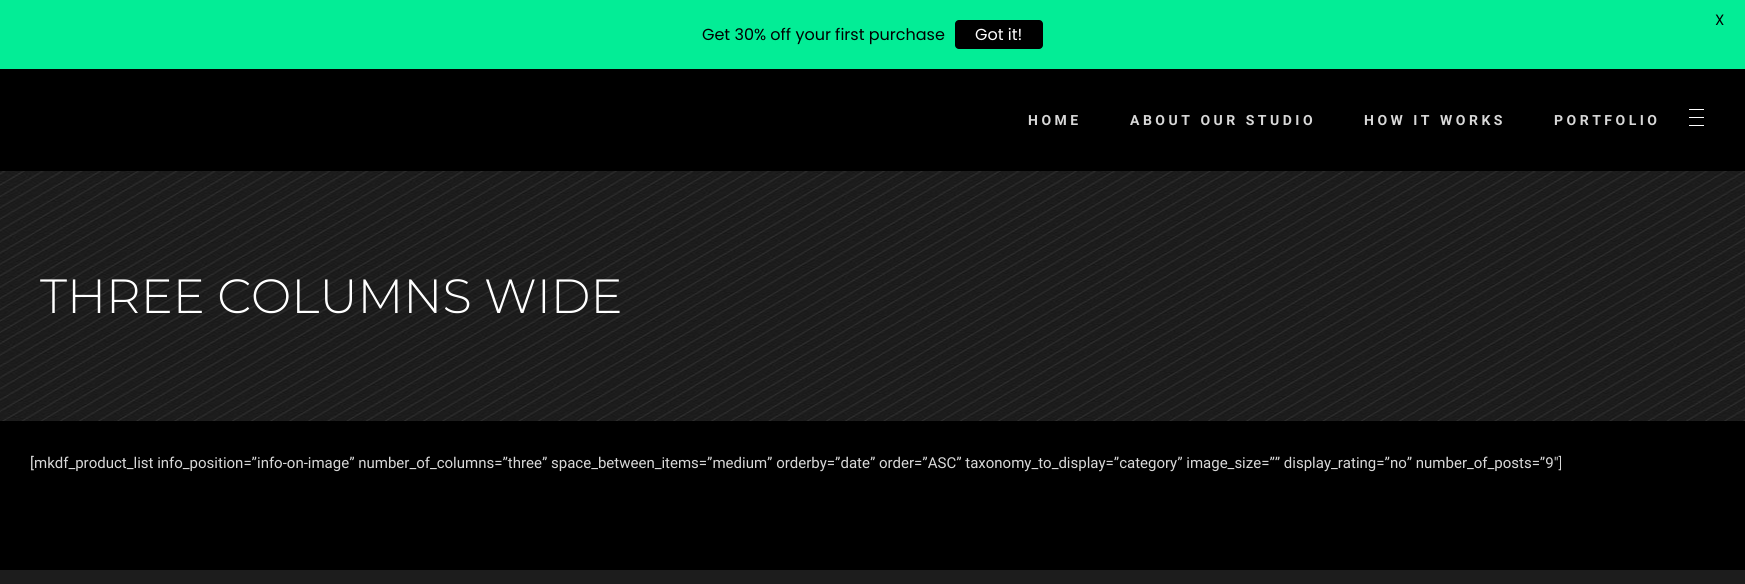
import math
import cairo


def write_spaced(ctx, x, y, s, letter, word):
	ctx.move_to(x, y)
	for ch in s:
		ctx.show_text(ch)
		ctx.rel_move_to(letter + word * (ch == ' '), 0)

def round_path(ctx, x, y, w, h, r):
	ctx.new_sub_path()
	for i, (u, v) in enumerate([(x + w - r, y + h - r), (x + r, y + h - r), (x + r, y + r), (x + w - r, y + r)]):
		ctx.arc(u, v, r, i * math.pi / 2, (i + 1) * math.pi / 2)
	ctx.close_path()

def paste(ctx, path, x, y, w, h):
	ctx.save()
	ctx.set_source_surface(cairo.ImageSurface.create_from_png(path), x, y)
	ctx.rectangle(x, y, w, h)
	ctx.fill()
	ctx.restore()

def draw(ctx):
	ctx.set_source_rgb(0, 0, 0)
	ctx.paint()
	ctx.set_source_rgb(0.012, 0.929, 0.588)
	ctx.rectangle(0, 0, 1745, 69)
	ctx.fill()
	ctx.select_font_face('Poppins')
	ctx.set_font_size(15)
	ctx.set_source_rgb(0, 0, 0)
	ctx.move_to(1715, 25)
	ctx.show_text('X')
	ctx.set_font_size(16)
	ctx.move_to(702, 40)
	ctx.show_text('Get 30% off your first purchase')
	round_path(ctx, 955, 20, 88, 29, 4)
	ctx.fill()
	ctx.set_source_rgb(1, 1, 1)
	ctx.move_to(975, 40)
	ctx.show_text('Got it!')
	ctx.select_font_face('Roboto', cairo.FONT_SLANT_NORMAL, cairo.FONT_WEIGHT_BOLD)
	ctx.set_font_size(14)
	ctx.set_source_rgb(0.847, 0.847, 0.847)
	for x, y, s in [
		(1028, 125, 'HOME'),
		(1130, 125, 'ABOUT OUR STUDIO'),
		(1364, 125, 'HOW IT WORKS'),
		(1554, 125, 'PORTFOLIO'),
	]:
		write_spaced(ctx, x, y, s, 3.5, 0)
	ctx.set_source_rgb(1, 1, 1)
	ctx.rectangle(1689, 109, 15, 1)
	ctx.rectangle(1689, 117, 15, 1)
	ctx.rectangle(1689, 125, 15, 1)
	ctx.fill()
	paste(ctx, 'media/1.png', 0, 171, 1745, 250)
	ctx.select_font_face('Montserrat Light')
	ctx.set_font_size(48)
	ctx.move_to(40, 313)
	ctx.show_text('THREE COLUMNS WIDE')
	ctx.select_font_face('Roboto')
	ctx.set_font_size(15)
	ctx.set_source_rgb(0.847, 0.847, 0.847)
	ctx.move_to(30, 468)
	ctx.show_text('[mkdf_product_list info_position=”info-on-image” number_of_columns=”three” space_between_items=”medium” orderby=”date” order=”ASC” taxonomy_to_display=”category” image_size=”” display_rating=”no” number_of_posts=”9″]')
	ctx.set_source_rgb(0.11, 0.11, 0.11)
	ctx.rectangle(0, 570, 1745, 14)
	ctx.fill()


surface = cairo.ImageSurface(cairo.FORMAT_RGB24, 1745, 584)
ctx = cairo.Context(surface)
options = cairo.FontOptions()
options.set_hint_metrics(cairo.HINT_METRICS_OFF)
options.set_hint_style(cairo.HINT_STYLE_NONE)
ctx.set_font_options(options)
ctx.set_miter_limit(4)
draw(ctx)
surface.write_to_png('image.png')
